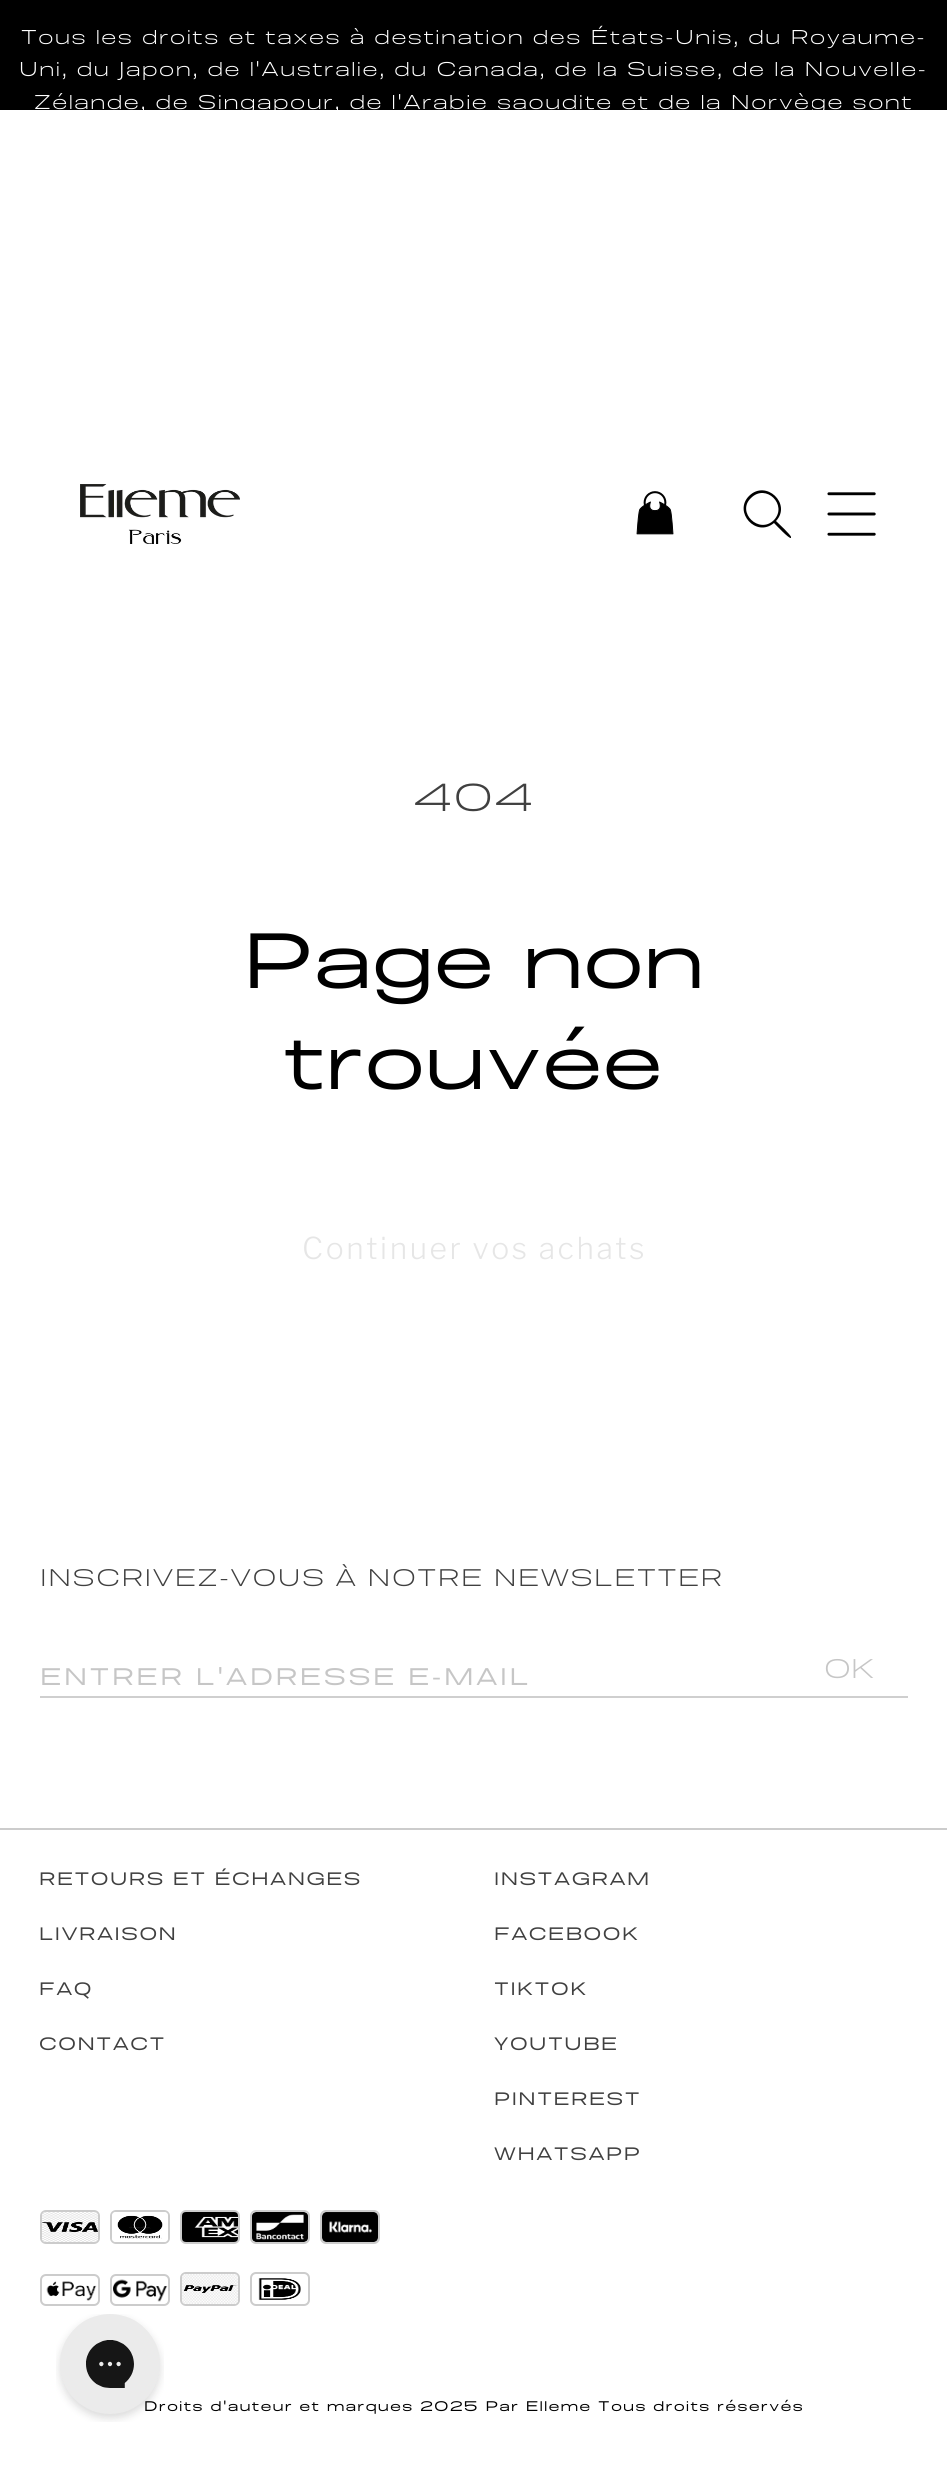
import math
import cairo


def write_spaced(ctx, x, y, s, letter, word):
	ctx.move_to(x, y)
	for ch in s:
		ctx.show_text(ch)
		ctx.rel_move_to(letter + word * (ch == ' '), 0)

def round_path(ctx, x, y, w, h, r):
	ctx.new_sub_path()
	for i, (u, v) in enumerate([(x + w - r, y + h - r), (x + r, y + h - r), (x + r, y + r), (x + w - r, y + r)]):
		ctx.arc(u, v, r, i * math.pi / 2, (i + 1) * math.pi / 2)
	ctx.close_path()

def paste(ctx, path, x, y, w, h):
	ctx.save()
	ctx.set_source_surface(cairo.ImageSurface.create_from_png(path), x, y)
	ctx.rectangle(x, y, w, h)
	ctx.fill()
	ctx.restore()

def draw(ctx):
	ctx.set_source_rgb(1, 1, 1)
	ctx.paint()
	ctx.set_source_rgb(0, 0, 0)
	ctx.rectangle(0, 0, 947, 110)
	ctx.fill()
	ctx.select_font_face('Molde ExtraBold')
	ctx.set_font_size(20)
	ctx.set_source_rgb(1, 1, 1)
	write_spaced(ctx, 21, 44, 'Tous les droits et taxes à destination des États-Unis, du Royaume-', 1.55, 0)
	write_spaced(ctx, 19, 76, 'Uni, du Japon, de l\'Australie, du Canada, de la Suisse, de la Nouvelle-', 1.55, 0)
	ctx.save()
	ctx.rectangle(0, 0, 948, 110)
	ctx.clip()
	write_spaced(ctx, 34, 109, 'Zélande, de Singapour, de l\'Arabie saoudite et de la Norvège sont', 1.55, 0)
	ctx.restore()
	paste(ctx, 'media/1.png', 80, 484, 160, 60)
	paste(ctx, 'media/2.png', 636, 491, 38, 44)
	ctx.set_source_rgb(0, 0, 0)
	ctx.set_fill_rule(cairo.FILL_RULE_EVEN_ODD)
	ctx.new_path()
	ctx.move_to(774, 520)
	ctx.curve_to(759, 535, 736, 512, 751, 498)
	ctx.curve_to(766, 483, 788, 505, 774, 520)
	ctx.close_path()
	ctx.move_to(774, 523)
	ctx.curve_to(756, 538, 733, 512, 749, 496)
	ctx.curve_to(766, 479, 792, 504, 776, 521)
	ctx.curve_to(778, 523, 791, 535, 791, 537)
	ctx.line_to(791, 538)
	ctx.curve_to(789, 539, 776, 525, 774, 523)
	ctx.close_path()
	ctx.fill()
	paste(ctx, 'media/3.png', 827, 492, 49, 44)
	ctx.set_font_size(39)
	ctx.set_source_rgb(0.251, 0.251, 0.251)
	write_spaced(ctx, 413, 811, '404', 1.55, 0)
	ctx.select_font_face('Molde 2 ExtraBold')
	ctx.set_font_size(78)
	ctx.set_source_rgb(0, 0, 0)
	write_spaced(ctx, 243, 988, 'Page non', 1.55, 0)
	write_spaced(ctx, 284, 1089, 'trouvée', 1.55, 0)
	ctx.select_font_face('Libre Franklin Light')
	ctx.set_font_size(30)
	ctx.set_source_rgb(0.902, 0.902, 0.902)
	write_spaced(ctx, 302, 1259, 'Continuer vos achats', 2.6, 0)
	ctx.rectangle(303, 1189, 342, 120)
	ctx.set_source_rgb(1, 1, 1)
	ctx.stroke()
	ctx.select_font_face('Molde ExtraBold')
	ctx.set_font_size(24)
	ctx.set_source_rgb(0.251, 0.251, 0.251)
	write_spaced(ctx, 40, 1586, 'INSCRIVEZ-VOUS À NOTRE NEWSLETTER', 1.55, 0)
	ctx.set_source_rgb(0.812, 0.812, 0.812)
	ctx.rectangle(40, 1696, 868, 2)
	ctx.fill()
	ctx.select_font_face('Molde 2 ExtraBold')
	ctx.set_source_rgb(0.776, 0.776, 0.776)
	write_spaced(ctx, 40, 1685, 'ENTRER L\'ADRESSE E-MAIL', 2.6, 0)
	ctx.select_font_face('Molde ExtraBold')
	ctx.set_font_size(27)
	ctx.move_to(824, 1678)
	ctx.show_text('OK')
	ctx.set_source_rgb(0.8, 0.8, 0.8)
	ctx.rectangle(0, 1828, 947, 2)
	ctx.fill()
	ctx.select_font_face('Molde 2 ExtraBold')
	ctx.set_font_size(18)
	ctx.set_source_rgb(0.251, 0.251, 0.251)
	for x, y, s in [
		(39, 1885, 'RETOURS ET ÉCHANGES'),
		(39, 1940, 'LIVRAISON'),
		(39, 1995, 'FAQ'),
		(39, 2050, 'CONTACT'),
		(494, 1885, 'INSTAGRAM'),
		(494, 1940, 'FACEBOOK'),
		(494, 1995, 'TIKTOK'),
		(494, 2050, 'YOUTUBE'),
		(494, 2105, 'PINTEREST'),
		(494, 2160, 'WHATSAPP'),
	]:
		write_spaced(ctx, x, y, s, 1.55, 0)
	round_path(ctx, 41, 2211, 58, 32, 5)
	ctx.set_source_rgb(0.8, 0.8, 0.8)
	ctx.stroke()
	round_path(ctx, 111, 2211, 58, 32, 5)
	ctx.stroke()
	round_path(ctx, 181, 2211, 58, 32, 5)
	ctx.stroke()
	round_path(ctx, 251, 2211, 58, 32, 5)
	ctx.stroke()
	round_path(ctx, 321, 2211, 58, 32, 5)
	ctx.stroke()
	paste(ctx, 'media/4.png', 42, 2212, 56, 30)
	paste(ctx, 'media/5.png', 112, 2212, 56, 30)
	paste(ctx, 'media/6.png', 182, 2212, 56, 30)
	paste(ctx, 'media/7.png', 252, 2212, 56, 30)
	paste(ctx, 'media/8.png', 322, 2212, 56, 30)
	round_path(ctx, 41, 2275, 58, 30, 5)
	ctx.stroke()
	round_path(ctx, 111, 2275, 58, 30, 5)
	ctx.stroke()
	round_path(ctx, 181, 2273, 58, 32, 5)
	ctx.stroke()
	round_path(ctx, 251, 2273, 58, 32, 5)
	ctx.stroke()
	paste(ctx, 'media/9.png', 46, 2281, 51, 20)
	paste(ctx, 'media/10.png', 113, 2279, 55, 23)
	paste(ctx, 'media/11.png', 182, 2274, 56, 30)
	paste(ctx, 'media/12.png', 258, 2278, 43, 22)
	ctx.set_font_size(14)
	ctx.set_source_rgb(0, 0, 0)
	write_spaced(ctx, 144, 2411, 'Droits d\'auteur et marques 2025 Par Elleme Tous droits réservés', 1.55, 0)
	paste(ctx, 'media/13.png', 56, 2314, 108, 108)


surface = cairo.ImageSurface(cairo.FORMAT_RGB24, 947, 2467)
ctx = cairo.Context(surface)
options = cairo.FontOptions()
options.set_hint_metrics(cairo.HINT_METRICS_OFF)
options.set_hint_style(cairo.HINT_STYLE_NONE)
ctx.set_font_options(options)
ctx.set_miter_limit(4)
draw(ctx)
surface.write_to_png('image.png')
